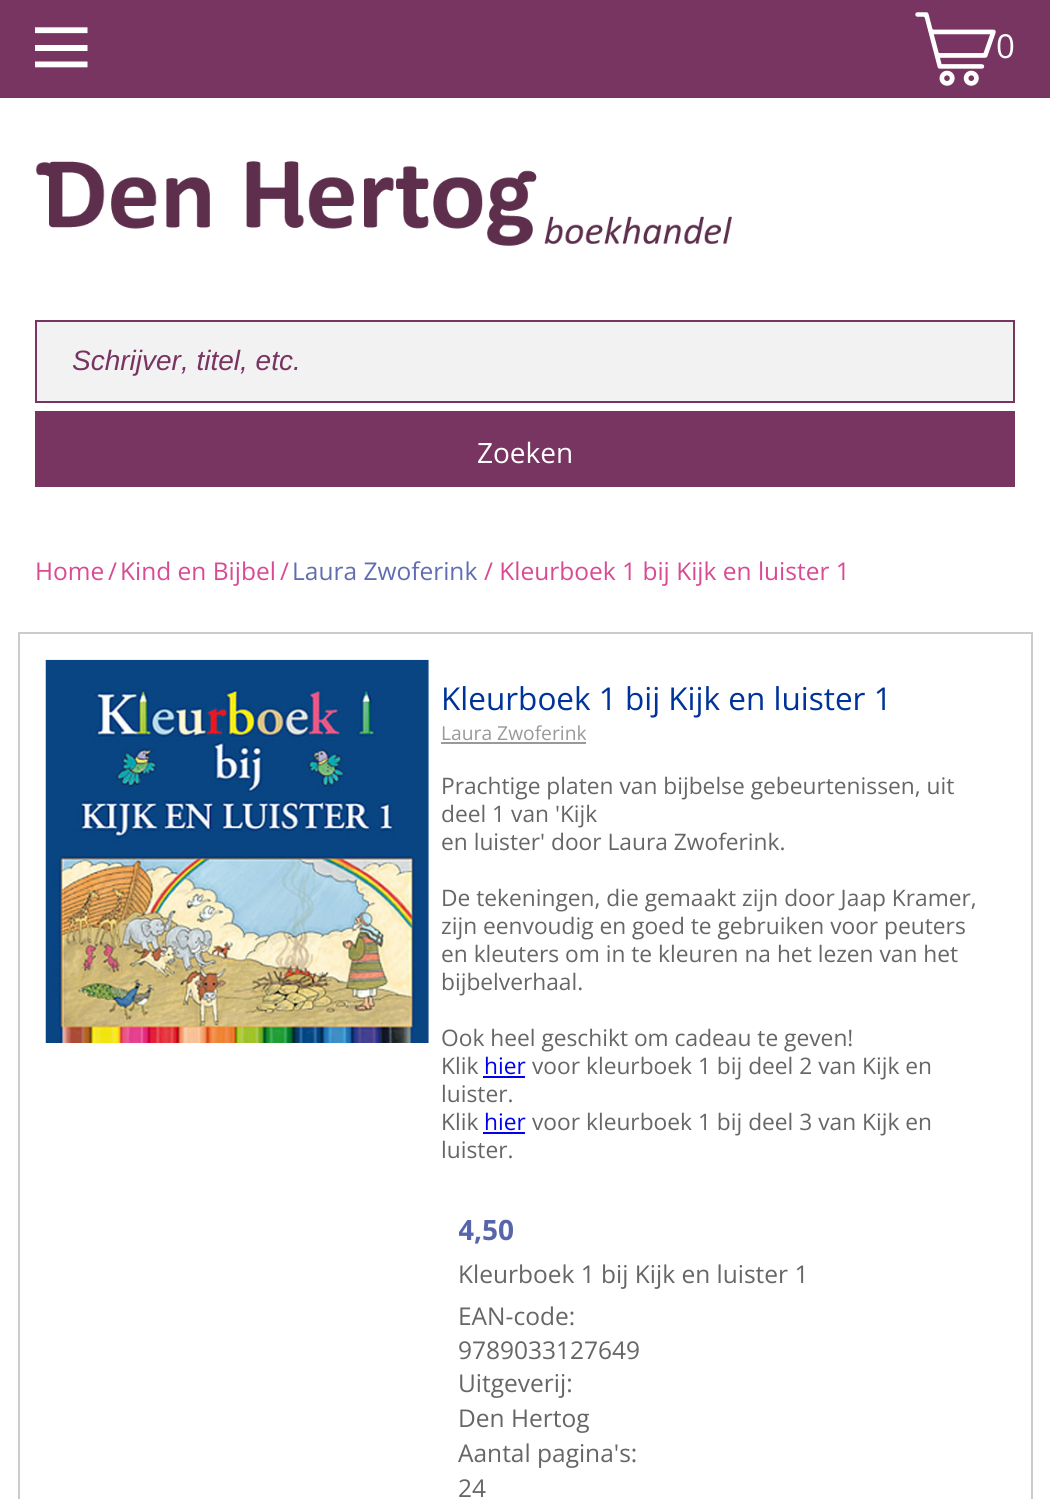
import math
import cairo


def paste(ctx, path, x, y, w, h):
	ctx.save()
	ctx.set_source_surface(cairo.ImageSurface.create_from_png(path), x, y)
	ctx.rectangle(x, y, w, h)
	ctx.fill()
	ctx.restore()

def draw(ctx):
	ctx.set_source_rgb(1, 1, 1)
	ctx.paint()
	ctx.set_source_rgb(0.471, 0.208, 0.38)
	ctx.rectangle(0, 0, 1050, 98)
	ctx.fill()
	paste(ctx, 'media/1.png', 35, 27, 53, 41)
	paste(ctx, 'media/2.png', 915, 12, 81, 74)
	ctx.select_font_face('Open Sans')
	ctx.set_font_size(33)
	ctx.set_source_rgb(1, 1, 1)
	ctx.move_to(996, 58)
	ctx.show_text('0')
	paste(ctx, 'media/3.png', 35, 161, 697, 85)
	ctx.set_source_rgb(0.949, 0.949, 0.949)
	ctx.rectangle(36, 321, 978, 81)
	ctx.fill_preserve()
	ctx.set_source_rgb(0.471, 0.208, 0.38)
	ctx.stroke()
	ctx.select_font_face('Liberation Sans', cairo.FONT_SLANT_ITALIC)
	ctx.set_font_size(28)
	ctx.set_source_rgb(0.471, 0.204, 0.38)
	ctx.move_to(72, 370)
	ctx.show_text('Schrijver, titel, etc.')
	ctx.set_source_rgb(0.471, 0.208, 0.38)
	ctx.rectangle(35, 411, 980, 76)
	ctx.fill()
	ctx.select_font_face('Open Sans')
	ctx.set_source_rgb(1, 1, 1)
	ctx.move_to(477, 463)
	ctx.show_text('Zoeken')
	ctx.set_font_size(24.5)
	ctx.set_source_rgb(0.847, 0.294, 0.58)
	for x, y, s in [
		(35, 580, 'Home'),
		(108, 580, '/'),
		(120, 580, 'Kind en Bijbel'),
		(280, 580, '/'),
	]:
		ctx.move_to(x, y)
		ctx.show_text(s)
	ctx.set_source_rgb(0.376, 0.427, 0.702)
	ctx.move_to(292, 580)
	ctx.show_text('Laura Zwoferink')
	ctx.set_source_rgb(0.847, 0.294, 0.58)
	ctx.move_to(484, 580)
	ctx.show_text('/ Kleurboek 1 bij Kijk en luister 1')
	ctx.rectangle(19, 633, 1013, 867)
	ctx.set_source_rgb(0.8, 0.8, 0.8)
	ctx.stroke()
	paste(ctx, 'media/4.png', 45, 659, 384, 384)
	ctx.set_font_size(31.5)
	ctx.set_source_rgb(0, 0.2, 0.6)
	ctx.move_to(441, 710)
	ctx.show_text('Kleurboek 1 bij Kijk en luister 1')
	ctx.set_font_size(19.25)
	ctx.set_source_rgb(0.6, 0.6, 0.6)
	ctx.move_to(441, 740)
	ctx.show_text('Laura Zwoferink')
	ctx.rectangle(441, 742, 145, 2)
	ctx.fill()
	ctx.set_font_size(22.75)
	ctx.set_source_rgb(0.4, 0.4, 0.4)
	for x, y, s in [
		(441, 794, 'Prachtige platen van bijbelse gebeurtenissen, uit'),
		(441, 822, 'deel 1 van \'Kijk'),
		(441, 850, 'en luister\' door Laura Zwoferink.'),
		(441, 906, 'De tekeningen, die gemaakt zijn door Jaap Kramer,'),
		(441, 934, 'zijn eenvoudig en goed te gebruiken voor peuters'),
		(441, 962, 'en kleuters om in te kleuren na het lezen van het'),
		(441, 990, 'bijbelverhaal.'),
		(441, 1046, 'Ook heel geschikt om cadeau te geven!'),
		(441, 1074, 'Klik'),
	]:
		ctx.move_to(x, y)
		ctx.show_text(s)
	ctx.set_source_rgb(0, 0, 0.933)
	ctx.move_to(484, 1074)
	ctx.show_text('hier')
	ctx.rectangle(483, 1076, 42, 2)
	ctx.fill()
	ctx.set_source_rgb(0.4, 0.4, 0.4)
	for x, y, s in [
		(532, 1074, 'voor kleurboek 1 bij deel 2 van Kijk en'),
		(441, 1102, 'luister.'),
		(441, 1130, 'Klik'),
	]:
		ctx.move_to(x, y)
		ctx.show_text(s)
	ctx.set_source_rgb(0, 0, 0.933)
	ctx.move_to(484, 1130)
	ctx.show_text('hier')
	ctx.rectangle(483, 1132, 42, 2)
	ctx.fill()
	ctx.set_source_rgb(0.4, 0.4, 0.4)
	ctx.move_to(532, 1130)
	ctx.show_text('voor kleurboek 1 bij deel 3 van Kijk en')
	ctx.move_to(441, 1158)
	ctx.show_text('luister.')
	ctx.save()
	ctx.rectangle(459, 1209, 528, 39)
	ctx.clip()
	ctx.select_font_face('Open Sans', cairo.FONT_SLANT_NORMAL, cairo.FONT_WEIGHT_BOLD)
	ctx.set_font_size(28)
	ctx.set_source_rgb(0.349, 0.396, 0.671)
	ctx.move_to(458, 1240)
	ctx.show_text('4,50')
	ctx.restore()
	ctx.set_font_size(24.5)
	for x, y, s in [
		(458, 1283, 'Kleurboek 1 bij Kijk en luister 1'),
		(458, 1325, 'EAN-code:'),
		(458, 1359, '9789033127649'),
		(458, 1392, 'Uitgeverij:'),
		(458, 1427, 'Den Hertog'),
		(458, 1462, 'Aantal pagina\'s:'),
		(458, 1497, '24'),
	]:
		ctx.move_to(x, y)
		ctx.show_text(s)


surface = cairo.ImageSurface(cairo.FORMAT_RGB24, 1050, 1499)
ctx = cairo.Context(surface)
options = cairo.FontOptions()
options.set_hint_metrics(cairo.HINT_METRICS_OFF)
options.set_hint_style(cairo.HINT_STYLE_NONE)
ctx.set_font_options(options)
ctx.set_miter_limit(4)
draw(ctx)
surface.write_to_png('image.png')
